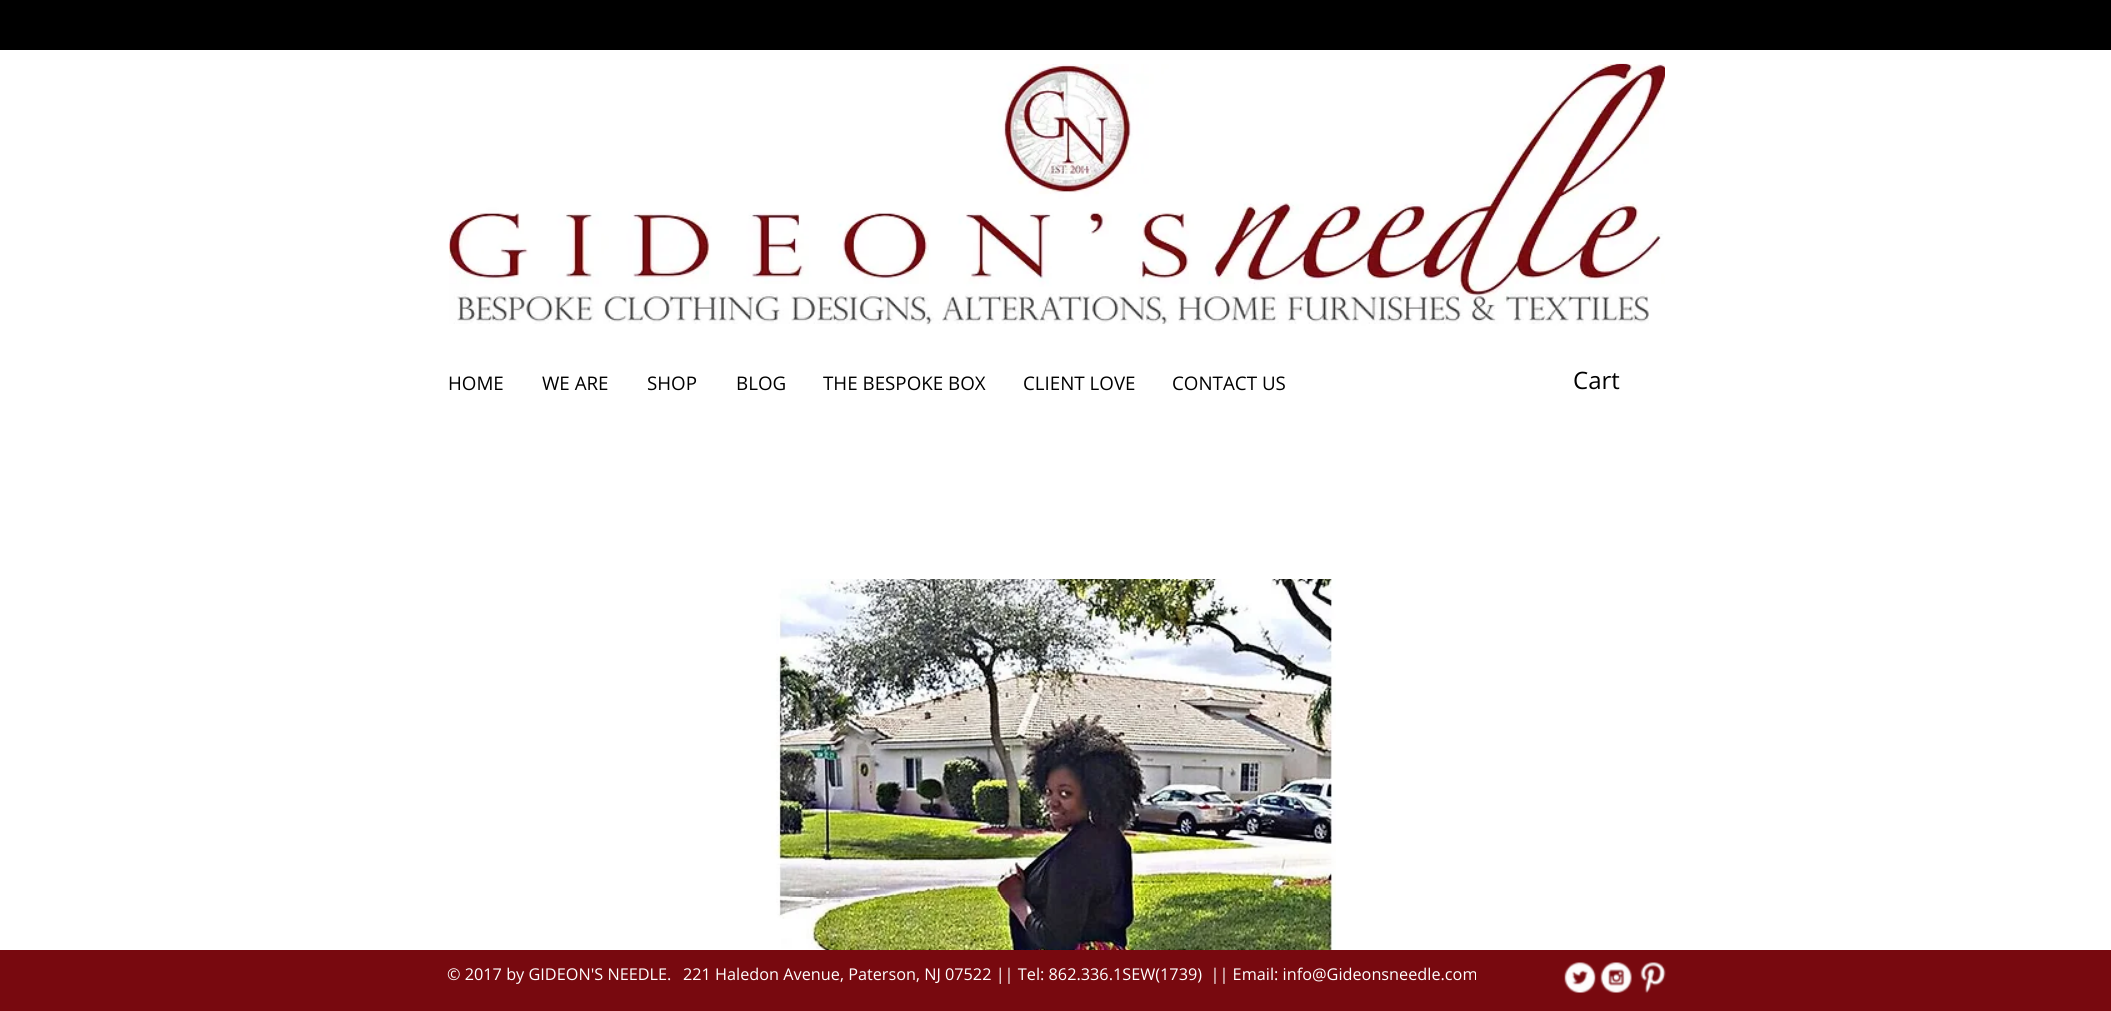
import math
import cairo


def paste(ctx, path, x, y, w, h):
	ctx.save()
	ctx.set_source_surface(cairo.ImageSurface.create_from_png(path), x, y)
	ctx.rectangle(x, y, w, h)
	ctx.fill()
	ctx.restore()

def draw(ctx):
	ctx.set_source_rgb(1, 1, 1)
	ctx.paint()
	ctx.set_source_rgb(0, 0, 0)
	ctx.rectangle(0, 0, 2111, 50)
	ctx.fill()
	paste(ctx, 'media/1.png', 448, 63, 1217, 263)
	ctx.select_font_face('Open Sans')
	ctx.set_font_size(18.75)
	for x, y, s in [
		(448, 390, 'HOME'),
		(542, 390, 'WE ARE'),
		(647, 390, 'SHOP'),
		(736, 390, 'BLOG'),
		(823, 390, 'THE BESPOKE BOX'),
		(1023, 390, 'CLIENT LOVE'),
		(1172, 390, 'CONTACT US'),
	]:
		ctx.move_to(x, y)
		ctx.show_text(s)
	ctx.set_font_size(24)
	ctx.move_to(1573, 389)
	ctx.show_text('Cart')
	paste(ctx, 'media/2.png', 771, 579, 565, 371)
	ctx.set_source_rgb(0.471, 0.039, 0.059)
	ctx.rectangle(0, 950, 2111, 61)
	ctx.fill()
	ctx.set_font_size(16.25)
	ctx.set_source_rgb(1, 1, 1)
	ctx.move_to(447, 980)
	ctx.show_text('© 2017 by GIDEON\'S NEEDLE.')
	ctx.move_to(683, 980)
	ctx.show_text('221 Haledon Avenue, Paterson, NJ 07522 || Tel: 862.336.1SEW(1739)  || Email: info@Gideonsneedle.com')
	paste(ctx, 'media/3.png', 1564, 962, 32, 31)
	paste(ctx, 'media/4.png', 1600, 962, 32, 31)
	paste(ctx, 'media/5.png', 1640, 962, 26, 31)


surface = cairo.ImageSurface(cairo.FORMAT_RGB24, 2111, 1011)
ctx = cairo.Context(surface)
options = cairo.FontOptions()
options.set_hint_metrics(cairo.HINT_METRICS_OFF)
options.set_hint_style(cairo.HINT_STYLE_NONE)
ctx.set_font_options(options)
ctx.set_miter_limit(4)
draw(ctx)
surface.write_to_png('image.png')
